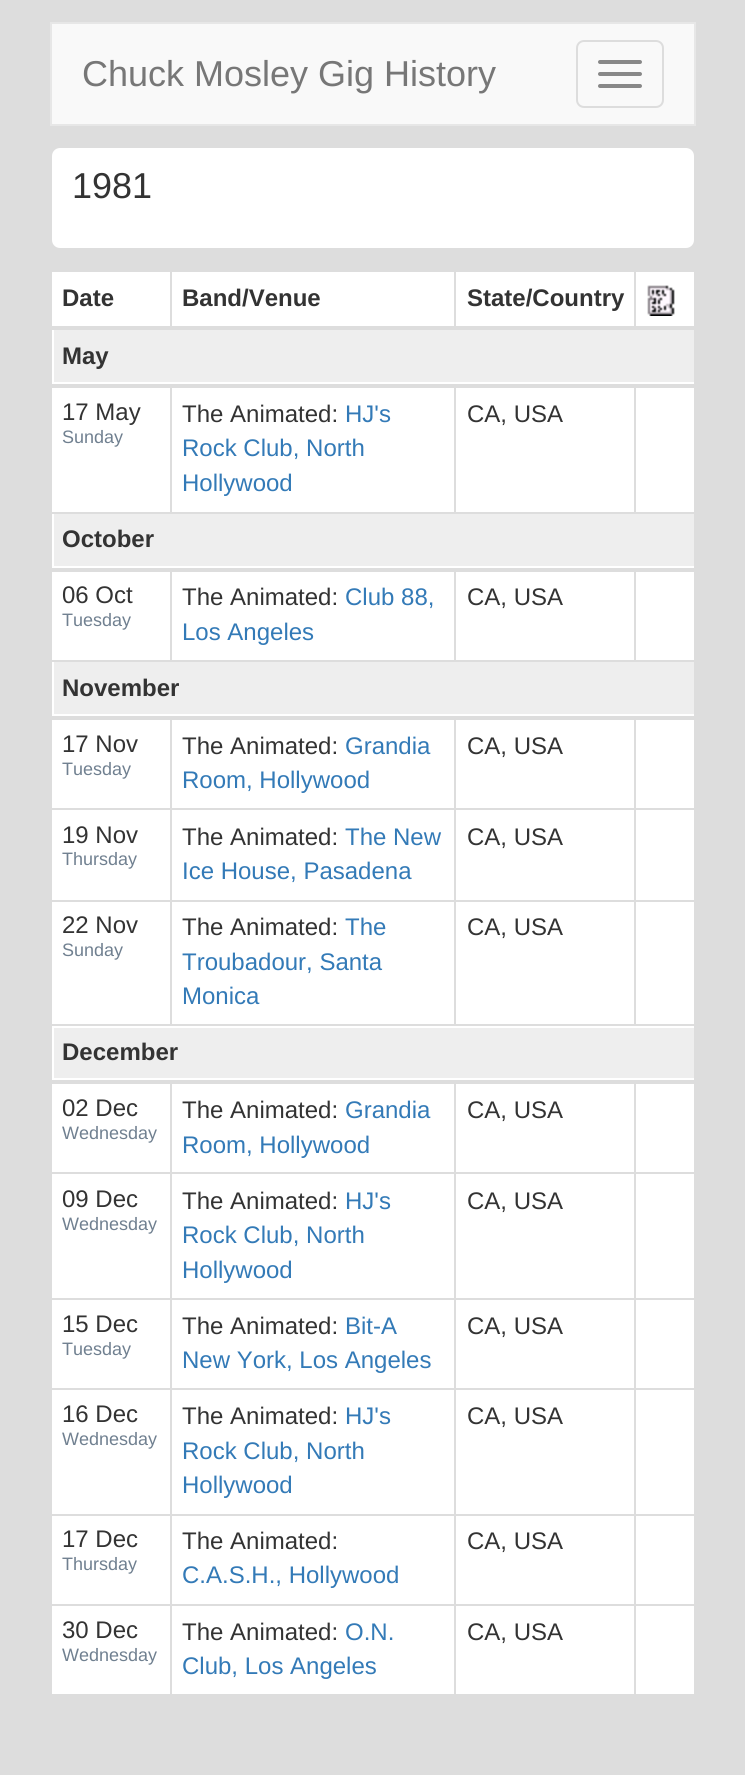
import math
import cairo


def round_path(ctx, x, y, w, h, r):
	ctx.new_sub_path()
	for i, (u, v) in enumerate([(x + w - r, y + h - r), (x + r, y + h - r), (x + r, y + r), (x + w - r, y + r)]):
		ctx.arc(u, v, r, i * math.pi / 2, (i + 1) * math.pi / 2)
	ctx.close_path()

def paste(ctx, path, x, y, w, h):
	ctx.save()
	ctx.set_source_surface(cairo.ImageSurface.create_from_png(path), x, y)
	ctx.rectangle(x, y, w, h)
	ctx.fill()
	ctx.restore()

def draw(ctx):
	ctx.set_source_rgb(0.867, 0.867, 0.867)
	ctx.paint()
	ctx.set_source_rgb(0.973, 0.973, 0.973)
	ctx.rectangle(51, 23, 644, 102)
	ctx.fill_preserve()
	ctx.set_source_rgb(0.906, 0.906, 0.906)
	ctx.stroke()
	ctx.select_font_face('Liberation Sans')
	ctx.set_font_size(36)
	ctx.set_source_rgb(0.467, 0.467, 0.467)
	ctx.move_to(82, 86)
	ctx.show_text('Chuck Mosley Gig History')
	round_path(ctx, 577, 41, 86, 66, 7)
	ctx.set_source_rgb(0.867, 0.867, 0.867)
	ctx.stroke()
	ctx.set_source_rgb(0.533, 0.533, 0.533)
	round_path(ctx, 598, 60, 44, 4, 2)
	ctx.fill()
	round_path(ctx, 598, 72, 44, 4, 2)
	ctx.fill()
	round_path(ctx, 598, 84, 44, 4, 2)
	ctx.fill()
	ctx.set_source_rgb(1, 1, 1)
	round_path(ctx, 51, 147, 644, 102, 9)
	ctx.fill_preserve()
	ctx.set_source_rgb(0.867, 0.867, 0.867)
	ctx.stroke()
	ctx.set_source_rgb(0.2, 0.2, 0.2)
	ctx.move_to(72, 198)
	ctx.show_text('1981')
	ctx.set_source_rgb(1, 1, 1)
	ctx.rectangle(52, 272, 642, 54)
	ctx.fill()
	ctx.select_font_face('Liberation Sans', cairo.FONT_SLANT_NORMAL, cairo.FONT_WEIGHT_BOLD)
	ctx.set_font_size(24)
	ctx.set_source_rgb(0.2, 0.2, 0.2)
	ctx.move_to(62, 306)
	ctx.show_text('Date')
	ctx.set_source_rgb(0.867, 0.867, 0.867)
	ctx.rectangle(170, 270, 2, 58)
	ctx.fill()
	ctx.set_source_rgb(0.2, 0.2, 0.2)
	ctx.move_to(182, 306)
	ctx.show_text('Band/Venue')
	ctx.set_source_rgb(0.867, 0.867, 0.867)
	ctx.rectangle(454, 270, 2, 58)
	ctx.fill()
	ctx.set_source_rgb(0.2, 0.2, 0.2)
	ctx.move_to(467, 306)
	ctx.show_text('State/Country')
	ctx.set_source_rgb(0.867, 0.867, 0.867)
	ctx.rectangle(634, 270, 2, 58)
	ctx.fill()
	paste(ctx, 'media/1.png', 647, 285, 28, 31)
	ctx.set_source_rgb(1, 1, 1)
	ctx.rectangle(52, 330, 642, 54)
	ctx.fill()
	ctx.set_source_rgb(0.933, 0.933, 0.933)
	ctx.rectangle(54, 330, 640, 52)
	ctx.fill()
	ctx.set_source_rgb(0.2, 0.2, 0.2)
	ctx.move_to(62, 364)
	ctx.show_text('May')
	ctx.set_source_rgb(1, 1, 1)
	ctx.rectangle(52, 388, 642, 124)
	ctx.fill()
	ctx.select_font_face('Liberation Sans')
	ctx.set_source_rgb(0.2, 0.2, 0.2)
	ctx.move_to(62, 420)
	ctx.show_text('17 May')
	ctx.set_font_size(18)
	ctx.set_source_rgb(0.439, 0.502, 0.565)
	ctx.move_to(62, 443)
	ctx.show_text('Sunday')
	ctx.set_source_rgb(0.867, 0.867, 0.867)
	ctx.rectangle(170, 386, 2, 128)
	ctx.fill()
	ctx.set_font_size(24)
	ctx.set_source_rgb(0.2, 0.2, 0.2)
	ctx.move_to(182, 422)
	ctx.show_text('The Animated:')
	ctx.set_source_rgb(0.2, 0.478, 0.718)
	for x, y, s in [
		(345, 422, 'HJ\'s'),
		(182, 456, 'Rock Club, North'),
		(182, 491, 'Hollywood'),
	]:
		ctx.move_to(x, y)
		ctx.show_text(s)
	ctx.set_source_rgb(0.867, 0.867, 0.867)
	ctx.rectangle(454, 386, 2, 128)
	ctx.fill()
	ctx.set_source_rgb(0.2, 0.2, 0.2)
	ctx.move_to(467, 422)
	ctx.show_text('CA, USA')
	ctx.set_source_rgb(0.867, 0.867, 0.867)
	ctx.rectangle(634, 386, 2, 128)
	ctx.fill()
	ctx.set_source_rgb(1, 1, 1)
	ctx.rectangle(52, 514, 642, 54)
	ctx.fill()
	ctx.set_source_rgb(0.933, 0.933, 0.933)
	ctx.rectangle(54, 514, 640, 52)
	ctx.fill()
	ctx.select_font_face('Liberation Sans', cairo.FONT_SLANT_NORMAL, cairo.FONT_WEIGHT_BOLD)
	ctx.set_source_rgb(0.2, 0.2, 0.2)
	ctx.move_to(62, 547)
	ctx.show_text('October')
	ctx.set_source_rgb(1, 1, 1)
	ctx.rectangle(52, 572, 642, 88)
	ctx.fill()
	ctx.select_font_face('Liberation Sans')
	ctx.set_source_rgb(0.2, 0.2, 0.2)
	ctx.move_to(62, 603)
	ctx.show_text('06 Oct')
	ctx.set_font_size(18)
	ctx.set_source_rgb(0.439, 0.502, 0.565)
	ctx.move_to(62, 626)
	ctx.show_text('Tuesday')
	ctx.set_source_rgb(0.867, 0.867, 0.867)
	ctx.rectangle(170, 568, 2, 94)
	ctx.fill()
	ctx.set_font_size(24)
	ctx.set_source_rgb(0.2, 0.2, 0.2)
	ctx.move_to(182, 605)
	ctx.show_text('The Animated:')
	ctx.set_source_rgb(0.2, 0.478, 0.718)
	ctx.move_to(345, 605)
	ctx.show_text('Club 88,')
	ctx.move_to(182, 640)
	ctx.show_text('Los Angeles')
	ctx.set_source_rgb(0.867, 0.867, 0.867)
	ctx.rectangle(454, 568, 2, 94)
	ctx.fill()
	ctx.set_source_rgb(0.2, 0.2, 0.2)
	ctx.move_to(467, 605)
	ctx.show_text('CA, USA')
	ctx.set_source_rgb(0.867, 0.867, 0.867)
	ctx.rectangle(634, 568, 2, 94)
	ctx.fill()
	ctx.set_source_rgb(1, 1, 1)
	ctx.rectangle(52, 662, 642, 54)
	ctx.fill()
	ctx.set_source_rgb(0.933, 0.933, 0.933)
	ctx.rectangle(54, 662, 640, 52)
	ctx.fill()
	ctx.select_font_face('Liberation Sans', cairo.FONT_SLANT_NORMAL, cairo.FONT_WEIGHT_BOLD)
	ctx.set_source_rgb(0.2, 0.2, 0.2)
	ctx.move_to(62, 696)
	ctx.show_text('November')
	ctx.set_source_rgb(1, 1, 1)
	ctx.rectangle(52, 720, 642, 88)
	ctx.fill()
	ctx.select_font_face('Liberation Sans')
	ctx.set_source_rgb(0.2, 0.2, 0.2)
	ctx.move_to(62, 752)
	ctx.show_text('17 Nov')
	ctx.set_font_size(18)
	ctx.set_source_rgb(0.439, 0.502, 0.565)
	ctx.move_to(62, 775)
	ctx.show_text('Tuesday')
	ctx.set_font_size(24)
	ctx.set_source_rgb(0.2, 0.2, 0.2)
	ctx.move_to(182, 754)
	ctx.show_text('The Animated:')
	ctx.set_source_rgb(0.2, 0.478, 0.718)
	ctx.move_to(345, 754)
	ctx.show_text('Grandia')
	ctx.move_to(182, 788)
	ctx.show_text('Room, Hollywood')
	ctx.set_source_rgb(0.2, 0.2, 0.2)
	ctx.move_to(467, 754)
	ctx.show_text('CA, USA')
	ctx.set_source_rgb(1, 1, 1)
	ctx.rectangle(52, 810, 642, 90)
	ctx.fill()
	ctx.set_source_rgb(0.2, 0.2, 0.2)
	ctx.move_to(62, 843)
	ctx.show_text('19 Nov')
	ctx.set_font_size(18)
	ctx.set_source_rgb(0.439, 0.502, 0.565)
	ctx.move_to(62, 865)
	ctx.show_text('Thursday')
	ctx.set_font_size(24)
	ctx.set_source_rgb(0.2, 0.2, 0.2)
	ctx.move_to(182, 845)
	ctx.show_text('The Animated:')
	ctx.set_source_rgb(0.2, 0.478, 0.718)
	ctx.move_to(345, 845)
	ctx.show_text('The New')
	ctx.move_to(182, 879)
	ctx.show_text('Ice House, Pasadena')
	ctx.set_source_rgb(0.2, 0.2, 0.2)
	ctx.move_to(467, 845)
	ctx.show_text('CA, USA')
	ctx.set_source_rgb(1, 1, 1)
	ctx.rectangle(52, 902, 642, 122)
	ctx.fill()
	ctx.set_source_rgb(0.2, 0.2, 0.2)
	ctx.move_to(62, 933)
	ctx.show_text('22 Nov')
	ctx.set_font_size(18)
	ctx.set_source_rgb(0.439, 0.502, 0.565)
	ctx.move_to(62, 956)
	ctx.show_text('Sunday')
	ctx.set_source_rgb(0.867, 0.867, 0.867)
	ctx.rectangle(170, 718, 2, 308)
	ctx.fill()
	ctx.set_font_size(24)
	ctx.set_source_rgb(0.2, 0.2, 0.2)
	ctx.move_to(182, 935)
	ctx.show_text('The Animated:')
	ctx.set_source_rgb(0.2, 0.478, 0.718)
	for x, y, s in [
		(345, 935, 'The'),
		(182, 970, 'Troubadour, Santa'),
		(182, 1004, 'Monica'),
	]:
		ctx.move_to(x, y)
		ctx.show_text(s)
	ctx.set_source_rgb(0.867, 0.867, 0.867)
	ctx.rectangle(454, 718, 2, 308)
	ctx.fill()
	ctx.set_source_rgb(0.2, 0.2, 0.2)
	ctx.move_to(467, 935)
	ctx.show_text('CA, USA')
	ctx.set_source_rgb(0.867, 0.867, 0.867)
	ctx.rectangle(634, 718, 2, 308)
	ctx.fill()
	ctx.set_source_rgb(1, 1, 1)
	ctx.rectangle(52, 1026, 642, 54)
	ctx.fill()
	ctx.set_source_rgb(0.933, 0.933, 0.933)
	ctx.rectangle(54, 1028, 640, 50)
	ctx.fill()
	ctx.select_font_face('Liberation Sans', cairo.FONT_SLANT_NORMAL, cairo.FONT_WEIGHT_BOLD)
	ctx.set_source_rgb(0.2, 0.2, 0.2)
	ctx.move_to(62, 1060)
	ctx.show_text('December')
	ctx.set_source_rgb(1, 1, 1)
	ctx.rectangle(52, 1084, 642, 88)
	ctx.fill()
	ctx.select_font_face('Liberation Sans')
	ctx.set_source_rgb(0.2, 0.2, 0.2)
	ctx.move_to(62, 1116)
	ctx.show_text('02 Dec')
	ctx.set_font_size(18)
	ctx.set_source_rgb(0.439, 0.502, 0.565)
	ctx.move_to(62, 1139)
	ctx.show_text('Wednesday')
	ctx.set_font_size(24)
	ctx.set_source_rgb(0.2, 0.2, 0.2)
	ctx.move_to(182, 1118)
	ctx.show_text('The Animated:')
	ctx.set_source_rgb(0.2, 0.478, 0.718)
	ctx.move_to(345, 1118)
	ctx.show_text('Grandia')
	ctx.move_to(182, 1153)
	ctx.show_text('Room, Hollywood')
	ctx.set_source_rgb(0.2, 0.2, 0.2)
	ctx.move_to(467, 1118)
	ctx.show_text('CA, USA')
	ctx.set_source_rgb(1, 1, 1)
	ctx.rectangle(52, 1174, 642, 124)
	ctx.fill()
	ctx.set_source_rgb(0.2, 0.2, 0.2)
	ctx.move_to(62, 1207)
	ctx.show_text('09 Dec')
	ctx.set_font_size(18)
	ctx.set_source_rgb(0.439, 0.502, 0.565)
	ctx.move_to(62, 1230)
	ctx.show_text('Wednesday')
	ctx.set_font_size(24)
	ctx.set_source_rgb(0.2, 0.2, 0.2)
	ctx.move_to(182, 1209)
	ctx.show_text('The Animated:')
	ctx.set_source_rgb(0.2, 0.478, 0.718)
	for x, y, s in [
		(345, 1209, 'HJ\'s'),
		(182, 1243, 'Rock Club, North'),
		(182, 1278, 'Hollywood'),
	]:
		ctx.move_to(x, y)
		ctx.show_text(s)
	ctx.set_source_rgb(0.2, 0.2, 0.2)
	ctx.move_to(467, 1209)
	ctx.show_text('CA, USA')
	ctx.set_source_rgb(1, 1, 1)
	ctx.rectangle(52, 1300, 642, 88)
	ctx.fill()
	ctx.set_source_rgb(0.2, 0.2, 0.2)
	ctx.move_to(62, 1332)
	ctx.show_text('15 Dec')
	ctx.set_font_size(18)
	ctx.set_source_rgb(0.439, 0.502, 0.565)
	ctx.move_to(62, 1355)
	ctx.show_text('Tuesday')
	ctx.set_font_size(24)
	ctx.set_source_rgb(0.2, 0.2, 0.2)
	ctx.move_to(182, 1334)
	ctx.show_text('The Animated:')
	ctx.set_source_rgb(0.2, 0.478, 0.718)
	ctx.move_to(345, 1334)
	ctx.show_text('Bit-A')
	ctx.move_to(182, 1368)
	ctx.show_text('New York, Los Angeles')
	ctx.set_source_rgb(0.2, 0.2, 0.2)
	ctx.move_to(467, 1334)
	ctx.show_text('CA, USA')
	ctx.set_source_rgb(1, 1, 1)
	ctx.rectangle(52, 1390, 642, 124)
	ctx.fill()
	ctx.set_source_rgb(0.2, 0.2, 0.2)
	ctx.move_to(62, 1422)
	ctx.show_text('16 Dec')
	ctx.set_font_size(18)
	ctx.set_source_rgb(0.439, 0.502, 0.565)
	ctx.move_to(62, 1445)
	ctx.show_text('Wednesday')
	ctx.set_font_size(24)
	ctx.set_source_rgb(0.2, 0.2, 0.2)
	ctx.move_to(182, 1424)
	ctx.show_text('The Animated:')
	ctx.set_source_rgb(0.2, 0.478, 0.718)
	for x, y, s in [
		(345, 1424, 'HJ\'s'),
		(182, 1459, 'Rock Club, North'),
		(182, 1493, 'Hollywood'),
	]:
		ctx.move_to(x, y)
		ctx.show_text(s)
	ctx.set_source_rgb(0.2, 0.2, 0.2)
	ctx.move_to(467, 1424)
	ctx.show_text('CA, USA')
	ctx.set_source_rgb(1, 1, 1)
	ctx.rectangle(52, 1516, 642, 88)
	ctx.fill()
	ctx.set_source_rgb(0.2, 0.2, 0.2)
	ctx.move_to(62, 1547)
	ctx.show_text('17 Dec')
	ctx.set_font_size(18)
	ctx.set_source_rgb(0.439, 0.502, 0.565)
	ctx.move_to(62, 1570)
	ctx.show_text('Thursday')
	ctx.set_font_size(24)
	ctx.set_source_rgb(0.2, 0.2, 0.2)
	ctx.move_to(182, 1549)
	ctx.show_text('The Animated:')
	ctx.set_source_rgb(0.2, 0.478, 0.718)
	ctx.move_to(182, 1583)
	ctx.show_text('C.A.S.H., Hollywood')
	ctx.set_source_rgb(0.2, 0.2, 0.2)
	ctx.move_to(467, 1549)
	ctx.show_text('CA, USA')
	ctx.set_source_rgb(1, 1, 1)
	ctx.rectangle(52, 1606, 642, 88)
	ctx.fill()
	ctx.set_source_rgb(0.2, 0.2, 0.2)
	ctx.move_to(62, 1638)
	ctx.show_text('30 Dec')
	ctx.set_font_size(18)
	ctx.set_source_rgb(0.439, 0.502, 0.565)
	ctx.move_to(62, 1661)
	ctx.show_text('Wednesday')
	ctx.set_source_rgb(0.867, 0.867, 0.867)
	ctx.rectangle(170, 1082, 2, 614)
	ctx.fill()
	ctx.set_font_size(24)
	ctx.set_source_rgb(0.2, 0.2, 0.2)
	ctx.move_to(182, 1640)
	ctx.show_text('The Animated:')
	ctx.set_source_rgb(0.2, 0.478, 0.718)
	ctx.move_to(345, 1640)
	ctx.show_text('O.N.')
	ctx.move_to(182, 1674)
	ctx.show_text('Club, Los Angeles')
	ctx.set_source_rgb(0.867, 0.867, 0.867)
	ctx.rectangle(454, 1082, 2, 614)
	ctx.fill()
	ctx.set_source_rgb(0.2, 0.2, 0.2)
	ctx.move_to(467, 1640)
	ctx.show_text('CA, USA')
	ctx.set_source_rgb(0.867, 0.867, 0.867)
	ctx.rectangle(634, 1082, 2, 614)
	ctx.fill()


surface = cairo.ImageSurface(cairo.FORMAT_RGB24, 745, 1775)
ctx = cairo.Context(surface)
options = cairo.FontOptions()
options.set_hint_metrics(cairo.HINT_METRICS_OFF)
options.set_hint_style(cairo.HINT_STYLE_NONE)
ctx.set_font_options(options)
ctx.set_miter_limit(4)
draw(ctx)
surface.write_to_png('image.png')
